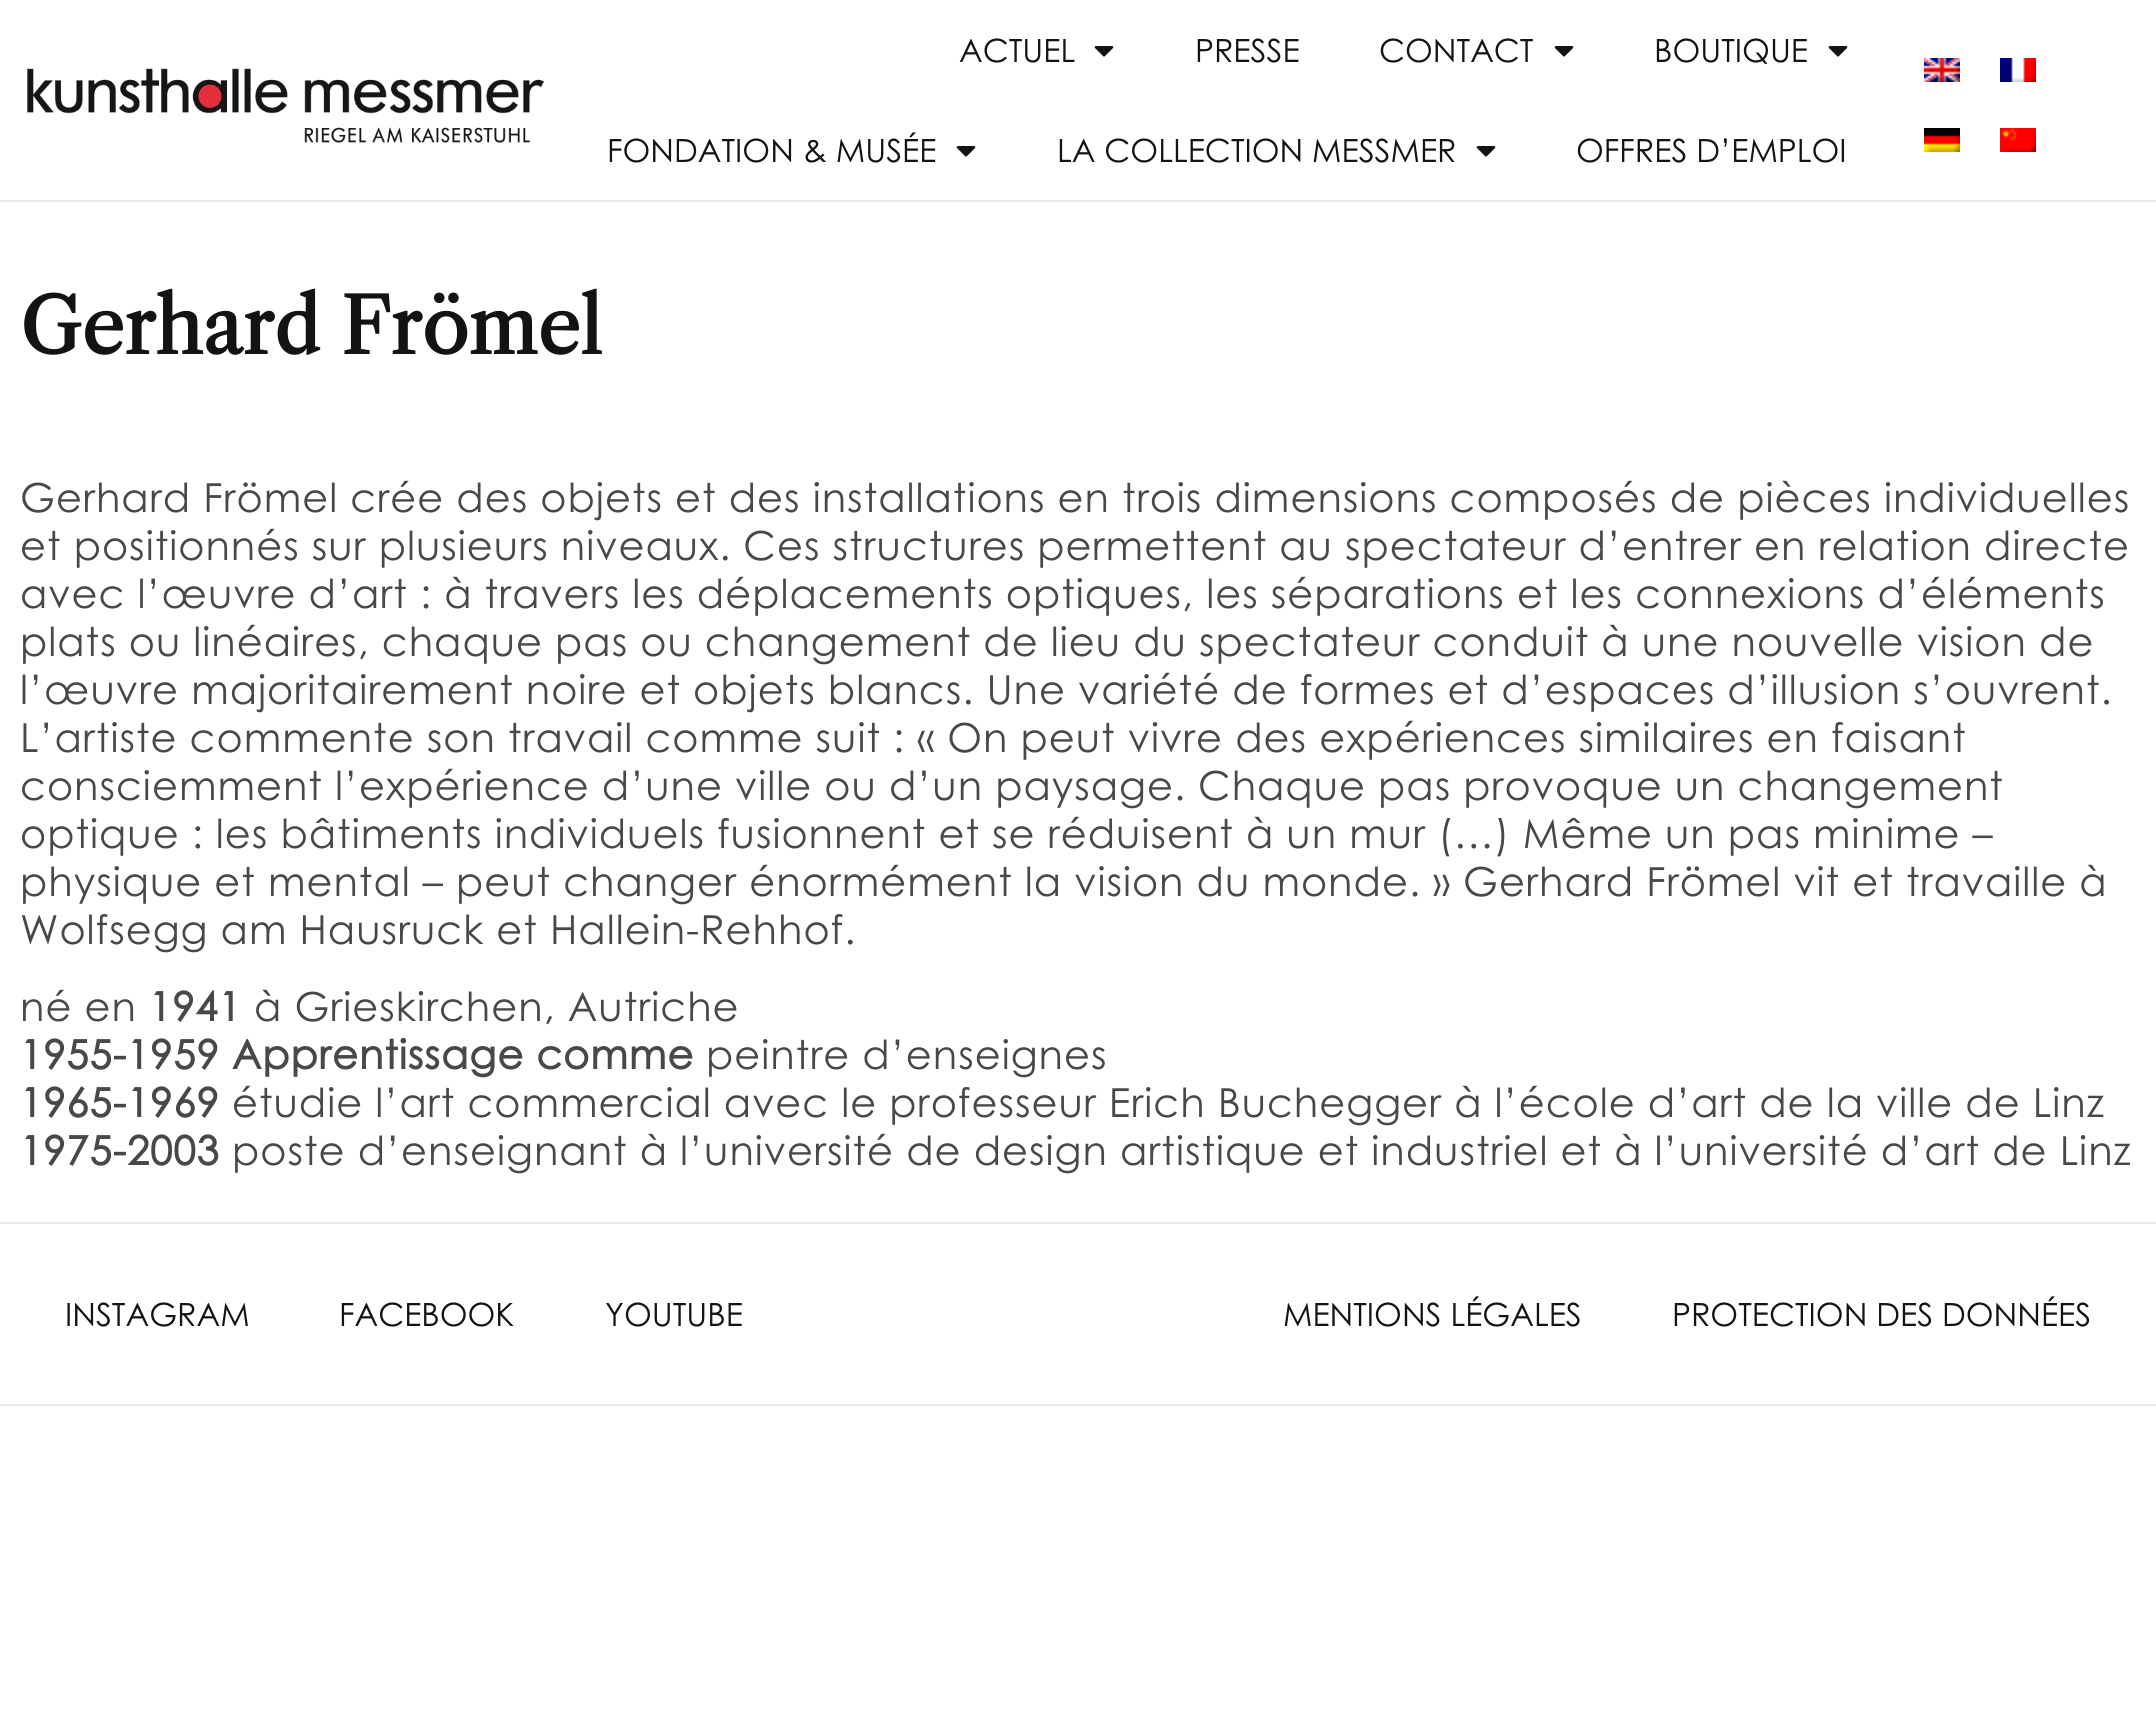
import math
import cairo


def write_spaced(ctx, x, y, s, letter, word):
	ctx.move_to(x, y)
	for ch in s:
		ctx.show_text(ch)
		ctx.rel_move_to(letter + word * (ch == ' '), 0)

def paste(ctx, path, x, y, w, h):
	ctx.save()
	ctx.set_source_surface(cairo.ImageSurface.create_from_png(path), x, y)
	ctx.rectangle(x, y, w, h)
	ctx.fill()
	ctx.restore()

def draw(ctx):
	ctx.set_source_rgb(1, 1, 1)
	ctx.paint()
	ctx.set_source_rgb(0.914, 0.914, 0.914)
	ctx.rectangle(0, 200, 2156, 2)
	ctx.fill()
	paste(ctx, 'media/1.png', 27, 68, 517, 75)
	ctx.select_font_face('Century Gothic')
	ctx.set_font_size(32)
	ctx.set_source_rgb(0.078, 0.075, 0.075)
	ctx.move_to(959, 62)
	ctx.show_text('ACTUEL')
	paste(ctx, 'media/2.png', 1094, 46, 20, 11)
	ctx.move_to(1195, 62)
	ctx.show_text('PRESSE')
	ctx.move_to(1379, 62)
	ctx.show_text('CONTACT')
	paste(ctx, 'media/2.png', 1554, 46, 20, 11)
	ctx.move_to(1654, 62)
	ctx.show_text('BOUTIQUE')
	paste(ctx, 'media/2.png', 1828, 46, 20, 11)
	ctx.move_to(607, 162)
	ctx.show_text('FONDATION & MUSÉE')
	paste(ctx, 'media/2.png', 956, 146, 20, 11)
	ctx.move_to(1057, 162)
	ctx.show_text('LA COLLECTION MESSMER')
	paste(ctx, 'media/2.png', 1476, 146, 20, 11)
	ctx.move_to(1576, 162)
	ctx.show_text('OFFRES D’EMPLOI')
	paste(ctx, 'media/3.png', 1924, 58, 36, 24)
	paste(ctx, 'media/4.png', 2000, 58, 36, 24)
	paste(ctx, 'media/5.png', 1924, 128, 36, 24)
	paste(ctx, 'media/6.png', 2000, 128, 36, 24)
	ctx.select_font_face('Libre Caslon Text', cairo.FONT_SLANT_NORMAL, cairo.FONT_WEIGHT_BOLD)
	ctx.set_font_size(76)
	ctx.move_to(20, 354)
	ctx.show_text('Gerhard Frömel')
	ctx.select_font_face('Century Gothic')
	ctx.set_font_size(40)
	ctx.set_source_rgb(0.282, 0.282, 0.282)
	for x, y, s in [
		(20, 512, 'Gerhard Frömel crée des objets et des installations en trois dimensions composés de pièces individuelles'),
		(20, 560, 'et positionnés sur plusieurs niveaux. Ces structures permettent au spectateur d’entrer en relation directe'),
		(20, 608, 'avec l’œuvre d’art : à travers les déplacements optiques, les séparations et les connexions d’éléments'),
		(20, 656, 'plats ou linéaires, chaque pas ou changement de lieu du spectateur conduit à une nouvelle vision de'),
		(20, 704, 'l’œuvre majoritairement noire et objets blancs. Une variété de formes et d’espaces d’illusion s’ouvrent.'),
		(20, 752, 'L’artiste commente son travail comme suit : « On peut vivre des expériences similaires en faisant'),
		(20, 800, 'consciemment l’expérience d’une ville ou d’un paysage. Chaque pas provoque un changement'),
		(20, 848, 'optique : les bâtiments individuels fusionnent et se réduisent à un mur (…) Même un pas minime –'),
		(20, 896, 'physique et mental – peut changer énormément la vision du monde. » Gerhard Frömel vit et travaille à'),
		(20, 944, 'Wolfsegg am Hausruck et Hallein-Rehhof.'),
		(20, 1021, 'né en'),
	]:
		write_spaced(ctx, x, y, s, 1, 0)
	ctx.select_font_face('Century Gothic', cairo.FONT_SLANT_NORMAL, cairo.FONT_WEIGHT_BOLD)
	write_spaced(ctx, 149, 1021, '1941', 1, 0)
	ctx.select_font_face('Century Gothic')
	write_spaced(ctx, 254, 1021, 'à Grieskirchen, Autriche', 1, 0)
	ctx.select_font_face('Century Gothic', cairo.FONT_SLANT_NORMAL, cairo.FONT_WEIGHT_BOLD)
	write_spaced(ctx, 20, 1069, '1955-1959 Apprentissage comme', 1, 0)
	ctx.select_font_face('Century Gothic')
	write_spaced(ctx, 706, 1069, 'peintre d’enseignes', 1, 0)
	ctx.select_font_face('Century Gothic', cairo.FONT_SLANT_NORMAL, cairo.FONT_WEIGHT_BOLD)
	write_spaced(ctx, 20, 1117, '1965-1969', 1, 0)
	ctx.select_font_face('Century Gothic')
	write_spaced(ctx, 232, 1117, 'étudie l’art commercial avec le professeur Erich Buchegger à l’école d’art de la ville de Linz', 1, 0)
	ctx.select_font_face('Century Gothic', cairo.FONT_SLANT_NORMAL, cairo.FONT_WEIGHT_BOLD)
	write_spaced(ctx, 20, 1165, '1975-2003', 1, 0)
	ctx.select_font_face('Century Gothic')
	write_spaced(ctx, 232, 1165, 'poste d’enseignant à l’université de design artistique et industriel et à l’université d’art de Linz', 1, 0)
	ctx.set_source_rgb(0.914, 0.914, 0.914)
	ctx.rectangle(0, 1222, 2156, 2)
	ctx.fill()
	ctx.rectangle(0, 1404, 2156, 2)
	ctx.fill()
	ctx.set_font_size(32)
	ctx.set_source_rgb(0.078, 0.075, 0.075)
	for x, y, s in [
		(65, 1326, 'INSTAGRAM'),
		(339, 1326, 'FACEBOOK'),
		(605, 1326, 'YOUTUBE'),
		(1283, 1326, 'MENTIONS LÉGALES'),
		(1672, 1326, 'PROTECTION DES DONNÉES'),
	]:
		ctx.move_to(x, y)
		ctx.show_text(s)


surface = cairo.ImageSurface(cairo.FORMAT_RGB24, 2156, 1718)
ctx = cairo.Context(surface)
options = cairo.FontOptions()
options.set_hint_metrics(cairo.HINT_METRICS_OFF)
options.set_hint_style(cairo.HINT_STYLE_NONE)
ctx.set_font_options(options)
ctx.set_miter_limit(4)
draw(ctx)
surface.write_to_png('image.png')
